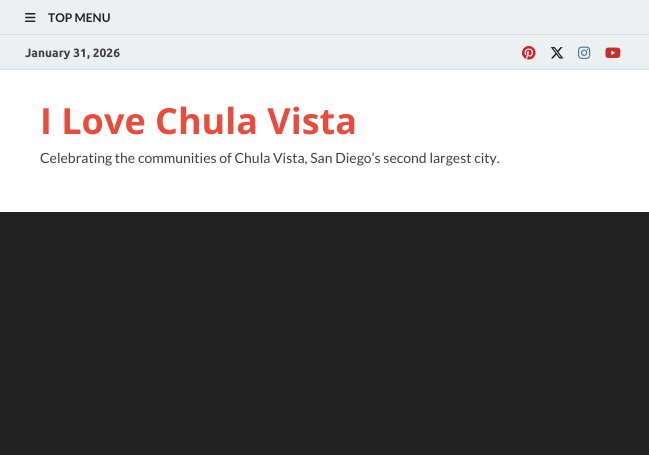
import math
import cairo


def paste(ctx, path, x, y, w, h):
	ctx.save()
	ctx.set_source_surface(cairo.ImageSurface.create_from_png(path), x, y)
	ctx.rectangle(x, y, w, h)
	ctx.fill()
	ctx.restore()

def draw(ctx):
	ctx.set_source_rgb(1, 1, 1)
	ctx.paint()
	ctx.set_source_rgb(0.925, 0.941, 0.945)
	ctx.rectangle(0, 0, 649, 34)
	ctx.fill()
	ctx.set_source_rgb(0.867, 0.867, 0.867)
	ctx.rectangle(0, 34, 649, 1)
	ctx.fill()
	paste(ctx, 'media/1.png', 25, 13, 11, 9)
	ctx.select_font_face('Lato', cairo.FONT_SLANT_NORMAL, cairo.FONT_WEIGHT_BOLD)
	ctx.set_font_size(12)
	ctx.set_source_rgb(0.133, 0.133, 0.133)
	ctx.move_to(48, 22)
	ctx.show_text('TOP MENU')
	ctx.set_source_rgb(0.925, 0.941, 0.945)
	ctx.rectangle(0, 35, 649, 34)
	ctx.fill()
	ctx.set_source_rgb(0.867, 0.867, 0.867)
	ctx.rectangle(0, 69, 649, 1)
	ctx.fill()
	ctx.select_font_face('Ubuntu', cairo.FONT_SLANT_NORMAL, cairo.FONT_WEIGHT_BOLD)
	ctx.set_source_rgb(0.251, 0.251, 0.251)
	ctx.move_to(25, 57)
	ctx.show_text('January 31, 2026')
	paste(ctx, 'media/2.png', 522, 46, 14, 14)
	paste(ctx, 'media/3.png', 550, 47, 14, 12)
	paste(ctx, 'media/4.png', 578, 46, 13, 13)
	paste(ctx, 'media/5.png', 605, 47, 16, 11)
	ctx.select_font_face('Open Sans', cairo.FONT_SLANT_NORMAL, cairo.FONT_WEIGHT_BOLD)
	ctx.set_font_size(36)
	ctx.set_source_rgb(0.906, 0.298, 0.235)
	ctx.move_to(40, 134)
	ctx.show_text('I Love Chula Vista')
	ctx.select_font_face('Lato')
	ctx.set_font_size(14)
	ctx.set_source_rgb(0.251, 0.251, 0.251)
	ctx.move_to(40, 163)
	ctx.show_text('Celebrating the communities of Chula Vista, San Diego’s second largest city.')
	ctx.set_source_rgb(0.133, 0.133, 0.133)
	ctx.rectangle(0, 212, 649, 243)
	ctx.fill()


surface = cairo.ImageSurface(cairo.FORMAT_RGB24, 649, 455)
ctx = cairo.Context(surface)
options = cairo.FontOptions()
options.set_hint_metrics(cairo.HINT_METRICS_OFF)
options.set_hint_style(cairo.HINT_STYLE_NONE)
ctx.set_font_options(options)
ctx.set_miter_limit(4)
draw(ctx)
surface.write_to_png('image.png')
